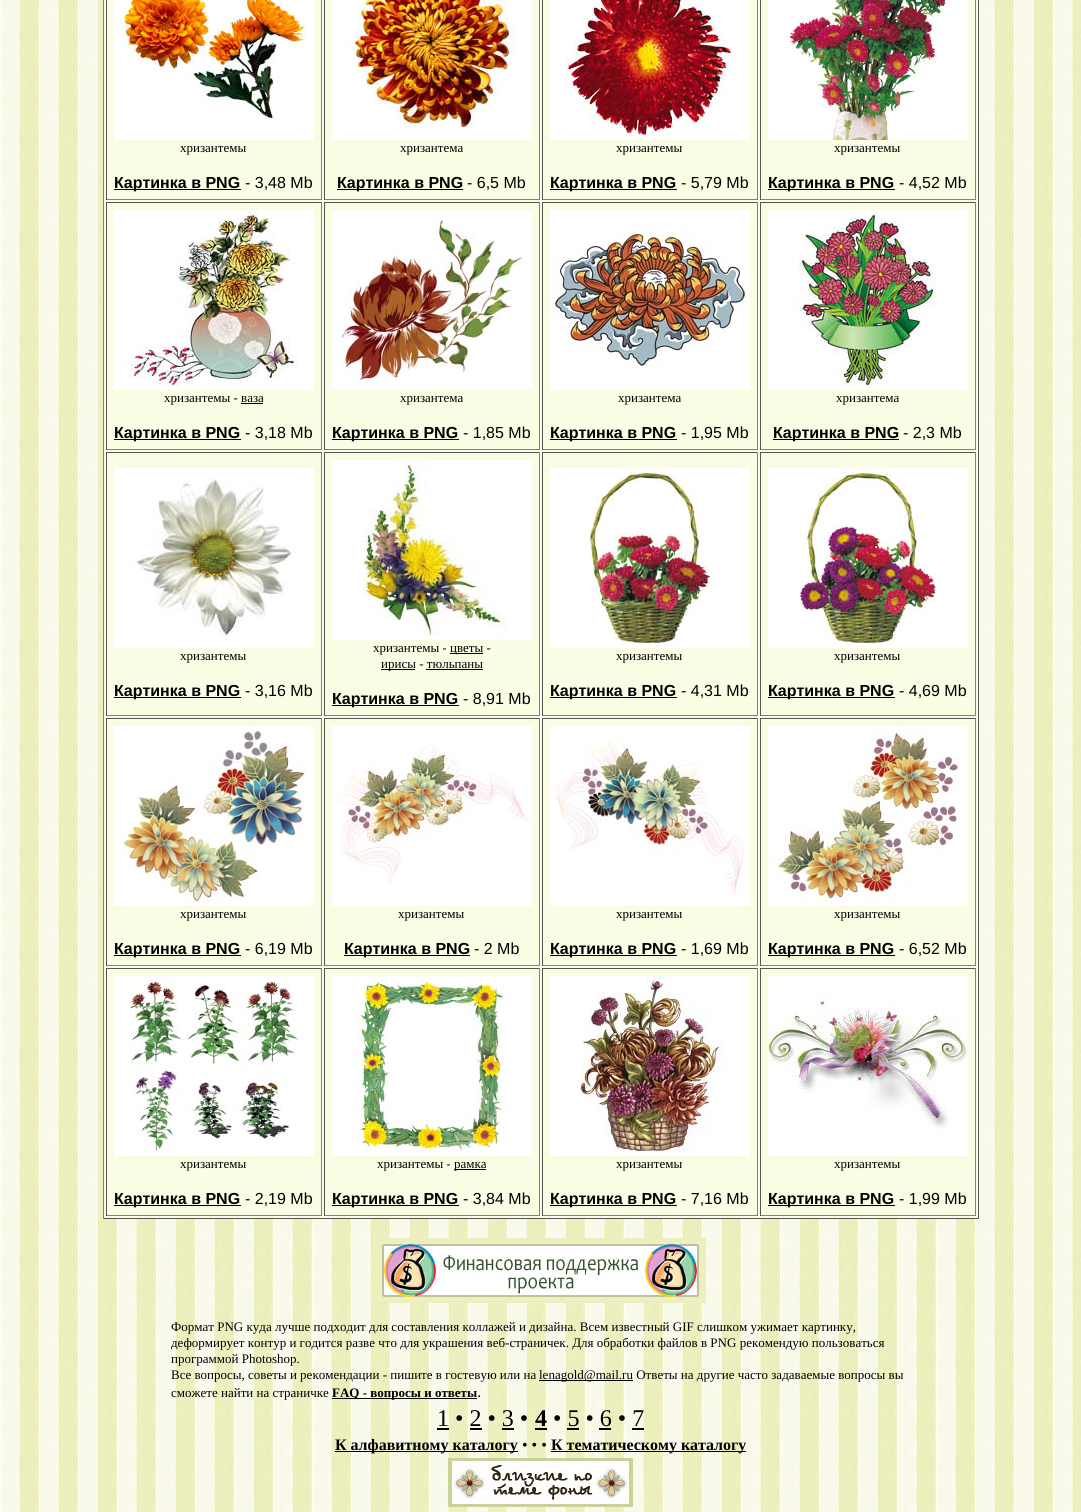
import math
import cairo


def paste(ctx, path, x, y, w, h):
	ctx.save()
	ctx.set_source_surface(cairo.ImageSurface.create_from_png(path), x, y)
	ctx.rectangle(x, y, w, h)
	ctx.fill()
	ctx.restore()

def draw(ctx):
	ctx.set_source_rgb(1, 1, 1)
	ctx.paint()
	paste(ctx, 'media/1.png', 0, 0, 1081, 1512)
	ctx.set_source_rgb(0.98, 0.992, 0.894)
	ctx.rectangle(104, 0, 874, 1218)
	ctx.fill()
	ctx.set_source_rgb(0.333, 0.333, 0.333)
	ctx.rectangle(978, 0, 1, 1219)
	ctx.rectangle(103, 1218, 876, 1)
	ctx.fill()
	ctx.set_source_rgb(0.502, 0.502, 0.502)
	ctx.rectangle(103, 0, 1, 1219)
	ctx.rectangle(321, 0, 1, 200)
	ctx.rectangle(106, 199, 216, 1)
	ctx.fill()
	ctx.set_source_rgb(0.333, 0.333, 0.333)
	ctx.rectangle(106, 0, 1, 200)
	ctx.fill()
	paste(ctx, 'media/2.png', 114, 0, 200, 140)
	ctx.select_font_face('Liberation Serif')
	ctx.set_font_size(13)
	ctx.set_source_rgb(0, 0, 0)
	ctx.move_to(180, 152)
	ctx.show_text('хризантемы')
	ctx.rectangle(114, 189, 127, 1)
	ctx.fill()
	ctx.select_font_face('Liberation Sans', cairo.FONT_SLANT_NORMAL, cairo.FONT_WEIGHT_BOLD)
	ctx.set_font_size(16)
	ctx.move_to(114, 188)
	ctx.show_text('Картинка в PNG')
	ctx.select_font_face('Liberation Sans')
	ctx.move_to(245, 188)
	ctx.show_text('- 3,48 Mb')
	ctx.set_source_rgb(0.502, 0.502, 0.502)
	ctx.rectangle(539, 0, 1, 200)
	ctx.rectangle(324, 199, 216, 1)
	ctx.fill()
	ctx.set_source_rgb(0.333, 0.333, 0.333)
	ctx.rectangle(324, 0, 1, 200)
	ctx.fill()
	paste(ctx, 'media/3.png', 332, 0, 200, 140)
	ctx.select_font_face('Liberation Serif')
	ctx.set_font_size(13)
	ctx.set_source_rgb(0, 0, 0)
	ctx.move_to(400, 152)
	ctx.show_text('хризантема')
	ctx.rectangle(337, 189, 126, 1)
	ctx.fill()
	ctx.select_font_face('Liberation Sans', cairo.FONT_SLANT_NORMAL, cairo.FONT_WEIGHT_BOLD)
	ctx.set_font_size(16)
	ctx.move_to(337, 188)
	ctx.show_text('Картинка в PNG')
	ctx.select_font_face('Liberation Sans')
	ctx.move_to(467, 188)
	ctx.show_text('- 6,5 Mb')
	ctx.set_source_rgb(0.502, 0.502, 0.502)
	ctx.rectangle(757, 0, 1, 200)
	ctx.rectangle(542, 199, 216, 1)
	ctx.fill()
	ctx.set_source_rgb(0.333, 0.333, 0.333)
	ctx.rectangle(542, 0, 1, 200)
	ctx.fill()
	paste(ctx, 'media/4.png', 550, 0, 200, 140)
	ctx.select_font_face('Liberation Serif')
	ctx.set_font_size(13)
	ctx.set_source_rgb(0, 0, 0)
	ctx.move_to(616, 152)
	ctx.show_text('хризантемы')
	ctx.rectangle(550, 189, 127, 1)
	ctx.fill()
	ctx.select_font_face('Liberation Sans', cairo.FONT_SLANT_NORMAL, cairo.FONT_WEIGHT_BOLD)
	ctx.set_font_size(16)
	ctx.move_to(550, 188)
	ctx.show_text('Картинка в PNG')
	ctx.select_font_face('Liberation Sans')
	ctx.move_to(681, 188)
	ctx.show_text('- 5,79 Mb')
	ctx.set_source_rgb(0.502, 0.502, 0.502)
	ctx.rectangle(975, 0, 1, 200)
	ctx.rectangle(760, 199, 216, 1)
	ctx.fill()
	ctx.set_source_rgb(0.333, 0.333, 0.333)
	ctx.rectangle(760, 0, 1, 200)
	ctx.fill()
	paste(ctx, 'media/5.png', 768, 0, 200, 140)
	ctx.select_font_face('Liberation Serif')
	ctx.set_font_size(13)
	ctx.set_source_rgb(0, 0, 0)
	ctx.move_to(834, 152)
	ctx.show_text('хризантемы')
	ctx.rectangle(768, 189, 127, 1)
	ctx.fill()
	ctx.select_font_face('Liberation Sans', cairo.FONT_SLANT_NORMAL, cairo.FONT_WEIGHT_BOLD)
	ctx.set_font_size(16)
	ctx.move_to(768, 188)
	ctx.show_text('Картинка в PNG')
	ctx.select_font_face('Liberation Sans')
	ctx.move_to(899, 188)
	ctx.show_text('- 4,52 Mb')
	ctx.set_source_rgb(0.333, 0.333, 0.333)
	ctx.rectangle(106, 202, 216, 1)
	ctx.fill()
	ctx.set_source_rgb(0.502, 0.502, 0.502)
	ctx.rectangle(321, 202, 1, 248)
	ctx.rectangle(106, 449, 216, 1)
	ctx.fill()
	ctx.set_source_rgb(0.333, 0.333, 0.333)
	ctx.rectangle(106, 202, 1, 248)
	ctx.fill()
	paste(ctx, 'media/6.png', 114, 210, 200, 180)
	ctx.select_font_face('Liberation Serif')
	ctx.set_font_size(13)
	ctx.set_source_rgb(0, 0, 0)
	ctx.move_to(164, 402)
	ctx.show_text('хризантемы - ваза')
	ctx.rectangle(241, 403, 22, 1)
	ctx.fill()
	ctx.rectangle(114, 439, 127, 1)
	ctx.fill()
	ctx.select_font_face('Liberation Sans', cairo.FONT_SLANT_NORMAL, cairo.FONT_WEIGHT_BOLD)
	ctx.set_font_size(16)
	ctx.move_to(114, 438)
	ctx.show_text('Картинка в PNG')
	ctx.select_font_face('Liberation Sans')
	ctx.move_to(245, 438)
	ctx.show_text('- 3,18 Mb')
	ctx.set_source_rgb(0.333, 0.333, 0.333)
	ctx.rectangle(324, 202, 216, 1)
	ctx.fill()
	ctx.set_source_rgb(0.502, 0.502, 0.502)
	ctx.rectangle(539, 202, 1, 248)
	ctx.rectangle(324, 449, 216, 1)
	ctx.fill()
	ctx.set_source_rgb(0.333, 0.333, 0.333)
	ctx.rectangle(324, 202, 1, 248)
	ctx.fill()
	paste(ctx, 'media/7.png', 332, 210, 200, 180)
	ctx.select_font_face('Liberation Serif')
	ctx.set_font_size(13)
	ctx.set_source_rgb(0, 0, 0)
	ctx.move_to(400, 402)
	ctx.show_text('хризантема')
	ctx.rectangle(332, 439, 127, 1)
	ctx.fill()
	ctx.select_font_face('Liberation Sans', cairo.FONT_SLANT_NORMAL, cairo.FONT_WEIGHT_BOLD)
	ctx.set_font_size(16)
	ctx.move_to(332, 438)
	ctx.show_text('Картинка в PNG')
	ctx.select_font_face('Liberation Sans')
	ctx.move_to(463, 438)
	ctx.show_text('- 1,85 Mb')
	ctx.set_source_rgb(0.333, 0.333, 0.333)
	ctx.rectangle(542, 202, 216, 1)
	ctx.fill()
	ctx.set_source_rgb(0.502, 0.502, 0.502)
	ctx.rectangle(757, 202, 1, 248)
	ctx.rectangle(542, 449, 216, 1)
	ctx.fill()
	ctx.set_source_rgb(0.333, 0.333, 0.333)
	ctx.rectangle(542, 202, 1, 248)
	ctx.fill()
	paste(ctx, 'media/8.png', 550, 210, 200, 180)
	ctx.select_font_face('Liberation Serif')
	ctx.set_font_size(13)
	ctx.set_source_rgb(0, 0, 0)
	ctx.move_to(618, 402)
	ctx.show_text('хризантема')
	ctx.rectangle(550, 439, 127, 1)
	ctx.fill()
	ctx.select_font_face('Liberation Sans', cairo.FONT_SLANT_NORMAL, cairo.FONT_WEIGHT_BOLD)
	ctx.set_font_size(16)
	ctx.move_to(550, 438)
	ctx.show_text('Картинка в PNG')
	ctx.select_font_face('Liberation Sans')
	ctx.move_to(681, 438)
	ctx.show_text('- 1,95 Mb')
	ctx.set_source_rgb(0.333, 0.333, 0.333)
	ctx.rectangle(760, 202, 216, 1)
	ctx.fill()
	ctx.set_source_rgb(0.502, 0.502, 0.502)
	ctx.rectangle(975, 202, 1, 248)
	ctx.rectangle(760, 449, 216, 1)
	ctx.fill()
	ctx.set_source_rgb(0.333, 0.333, 0.333)
	ctx.rectangle(760, 202, 1, 248)
	ctx.fill()
	paste(ctx, 'media/9.png', 768, 210, 200, 180)
	ctx.select_font_face('Liberation Serif')
	ctx.set_font_size(13)
	ctx.set_source_rgb(0, 0, 0)
	ctx.move_to(836, 402)
	ctx.show_text('хризантема')
	ctx.rectangle(773, 439, 126, 1)
	ctx.fill()
	ctx.select_font_face('Liberation Sans', cairo.FONT_SLANT_NORMAL, cairo.FONT_WEIGHT_BOLD)
	ctx.set_font_size(16)
	ctx.move_to(773, 438)
	ctx.show_text('Картинка в PNG')
	ctx.select_font_face('Liberation Sans')
	ctx.move_to(903, 438)
	ctx.show_text('- 2,3 Mb')
	ctx.set_source_rgb(0.333, 0.333, 0.333)
	ctx.rectangle(106, 452, 216, 1)
	ctx.fill()
	ctx.set_source_rgb(0.502, 0.502, 0.502)
	ctx.rectangle(321, 452, 1, 264)
	ctx.rectangle(106, 715, 216, 1)
	ctx.fill()
	ctx.set_source_rgb(0.333, 0.333, 0.333)
	ctx.rectangle(106, 452, 1, 264)
	ctx.fill()
	paste(ctx, 'media/10.png', 114, 468, 200, 180)
	ctx.select_font_face('Liberation Serif')
	ctx.set_font_size(13)
	ctx.set_source_rgb(0, 0, 0)
	ctx.move_to(180, 660)
	ctx.show_text('хризантемы')
	ctx.rectangle(114, 697, 127, 1)
	ctx.fill()
	ctx.select_font_face('Liberation Sans', cairo.FONT_SLANT_NORMAL, cairo.FONT_WEIGHT_BOLD)
	ctx.set_font_size(16)
	ctx.move_to(114, 696)
	ctx.show_text('Картинка в PNG')
	ctx.select_font_face('Liberation Sans')
	ctx.move_to(245, 696)
	ctx.show_text('- 3,16 Mb')
	ctx.set_source_rgb(0.333, 0.333, 0.333)
	ctx.rectangle(324, 452, 216, 1)
	ctx.fill()
	ctx.set_source_rgb(0.502, 0.502, 0.502)
	ctx.rectangle(539, 452, 1, 264)
	ctx.rectangle(324, 715, 216, 1)
	ctx.fill()
	ctx.set_source_rgb(0.333, 0.333, 0.333)
	ctx.rectangle(324, 452, 1, 264)
	ctx.fill()
	paste(ctx, 'media/11.png', 332, 460, 200, 180)
	ctx.select_font_face('Liberation Serif')
	ctx.set_font_size(13)
	ctx.set_source_rgb(0, 0, 0)
	ctx.move_to(373, 652)
	ctx.show_text('хризантемы -')
	ctx.rectangle(450, 653, 33, 1)
	ctx.fill()
	ctx.move_to(450, 652)
	ctx.show_text('цветы -')
	ctx.rectangle(381, 669, 34, 1)
	ctx.fill()
	ctx.move_to(381, 668)
	ctx.show_text('ирисы - тюльпаны')
	ctx.rectangle(426, 669, 57, 1)
	ctx.fill()
	ctx.rectangle(332, 705, 127, 1)
	ctx.fill()
	ctx.select_font_face('Liberation Sans', cairo.FONT_SLANT_NORMAL, cairo.FONT_WEIGHT_BOLD)
	ctx.set_font_size(16)
	ctx.move_to(332, 704)
	ctx.show_text('Картинка в PNG')
	ctx.select_font_face('Liberation Sans')
	ctx.move_to(463, 704)
	ctx.show_text('- 8,91 Mb')
	ctx.set_source_rgb(0.333, 0.333, 0.333)
	ctx.rectangle(542, 452, 216, 1)
	ctx.fill()
	ctx.set_source_rgb(0.502, 0.502, 0.502)
	ctx.rectangle(757, 452, 1, 264)
	ctx.rectangle(542, 715, 216, 1)
	ctx.fill()
	ctx.set_source_rgb(0.333, 0.333, 0.333)
	ctx.rectangle(542, 452, 1, 264)
	ctx.fill()
	paste(ctx, 'media/12.png', 550, 468, 200, 180)
	ctx.select_font_face('Liberation Serif')
	ctx.set_font_size(13)
	ctx.set_source_rgb(0, 0, 0)
	ctx.move_to(616, 660)
	ctx.show_text('хризантемы')
	ctx.rectangle(550, 697, 127, 1)
	ctx.fill()
	ctx.select_font_face('Liberation Sans', cairo.FONT_SLANT_NORMAL, cairo.FONT_WEIGHT_BOLD)
	ctx.set_font_size(16)
	ctx.move_to(550, 696)
	ctx.show_text('Картинка в PNG')
	ctx.select_font_face('Liberation Sans')
	ctx.move_to(681, 696)
	ctx.show_text('- 4,31 Mb')
	ctx.set_source_rgb(0.333, 0.333, 0.333)
	ctx.rectangle(760, 452, 216, 1)
	ctx.fill()
	ctx.set_source_rgb(0.502, 0.502, 0.502)
	ctx.rectangle(975, 452, 1, 264)
	ctx.rectangle(760, 715, 216, 1)
	ctx.fill()
	ctx.set_source_rgb(0.333, 0.333, 0.333)
	ctx.rectangle(760, 452, 1, 264)
	ctx.fill()
	paste(ctx, 'media/13.png', 768, 468, 200, 180)
	ctx.select_font_face('Liberation Serif')
	ctx.set_font_size(13)
	ctx.set_source_rgb(0, 0, 0)
	ctx.move_to(834, 660)
	ctx.show_text('хризантемы')
	ctx.rectangle(768, 697, 127, 1)
	ctx.fill()
	ctx.select_font_face('Liberation Sans', cairo.FONT_SLANT_NORMAL, cairo.FONT_WEIGHT_BOLD)
	ctx.set_font_size(16)
	ctx.move_to(768, 696)
	ctx.show_text('Картинка в PNG')
	ctx.select_font_face('Liberation Sans')
	ctx.move_to(899, 696)
	ctx.show_text('- 4,69 Mb')
	ctx.set_source_rgb(0.333, 0.333, 0.333)
	ctx.rectangle(106, 718, 216, 1)
	ctx.fill()
	ctx.set_source_rgb(0.502, 0.502, 0.502)
	ctx.rectangle(321, 718, 1, 248)
	ctx.rectangle(106, 965, 216, 1)
	ctx.fill()
	ctx.set_source_rgb(0.333, 0.333, 0.333)
	ctx.rectangle(106, 718, 1, 248)
	ctx.fill()
	paste(ctx, 'media/14.png', 114, 726, 200, 180)
	ctx.select_font_face('Liberation Serif')
	ctx.set_font_size(13)
	ctx.set_source_rgb(0, 0, 0)
	ctx.move_to(180, 918)
	ctx.show_text('хризантемы')
	ctx.rectangle(114, 955, 127, 1)
	ctx.fill()
	ctx.select_font_face('Liberation Sans', cairo.FONT_SLANT_NORMAL, cairo.FONT_WEIGHT_BOLD)
	ctx.set_font_size(16)
	ctx.move_to(114, 954)
	ctx.show_text('Картинка в PNG')
	ctx.select_font_face('Liberation Sans')
	ctx.move_to(245, 954)
	ctx.show_text('- 6,19 Mb')
	ctx.set_source_rgb(0.333, 0.333, 0.333)
	ctx.rectangle(324, 718, 216, 1)
	ctx.fill()
	ctx.set_source_rgb(0.502, 0.502, 0.502)
	ctx.rectangle(539, 718, 1, 248)
	ctx.rectangle(324, 965, 216, 1)
	ctx.fill()
	ctx.set_source_rgb(0.333, 0.333, 0.333)
	ctx.rectangle(324, 718, 1, 248)
	ctx.fill()
	paste(ctx, 'media/15.png', 332, 726, 200, 180)
	ctx.select_font_face('Liberation Serif')
	ctx.set_font_size(13)
	ctx.set_source_rgb(0, 0, 0)
	ctx.move_to(398, 918)
	ctx.show_text('хризантемы')
	ctx.rectangle(344, 955, 126, 1)
	ctx.fill()
	ctx.select_font_face('Liberation Sans', cairo.FONT_SLANT_NORMAL, cairo.FONT_WEIGHT_BOLD)
	ctx.set_font_size(16)
	ctx.move_to(344, 954)
	ctx.show_text('Картинка в PNG')
	ctx.select_font_face('Liberation Sans')
	ctx.move_to(474, 954)
	ctx.show_text('- 2 Mb')
	ctx.set_source_rgb(0.333, 0.333, 0.333)
	ctx.rectangle(542, 718, 216, 1)
	ctx.fill()
	ctx.set_source_rgb(0.502, 0.502, 0.502)
	ctx.rectangle(757, 718, 1, 248)
	ctx.rectangle(542, 965, 216, 1)
	ctx.fill()
	ctx.set_source_rgb(0.333, 0.333, 0.333)
	ctx.rectangle(542, 718, 1, 248)
	ctx.fill()
	paste(ctx, 'media/16.png', 550, 726, 200, 180)
	ctx.select_font_face('Liberation Serif')
	ctx.set_font_size(13)
	ctx.set_source_rgb(0, 0, 0)
	ctx.move_to(616, 918)
	ctx.show_text('хризантемы')
	ctx.rectangle(550, 955, 127, 1)
	ctx.fill()
	ctx.select_font_face('Liberation Sans', cairo.FONT_SLANT_NORMAL, cairo.FONT_WEIGHT_BOLD)
	ctx.set_font_size(16)
	ctx.move_to(550, 954)
	ctx.show_text('Картинка в PNG')
	ctx.select_font_face('Liberation Sans')
	ctx.move_to(681, 954)
	ctx.show_text('- 1,69 Mb')
	ctx.set_source_rgb(0.333, 0.333, 0.333)
	ctx.rectangle(760, 718, 216, 1)
	ctx.fill()
	ctx.set_source_rgb(0.502, 0.502, 0.502)
	ctx.rectangle(975, 718, 1, 248)
	ctx.rectangle(760, 965, 216, 1)
	ctx.fill()
	ctx.set_source_rgb(0.333, 0.333, 0.333)
	ctx.rectangle(760, 718, 1, 248)
	ctx.fill()
	paste(ctx, 'media/17.png', 768, 726, 200, 180)
	ctx.select_font_face('Liberation Serif')
	ctx.set_font_size(13)
	ctx.set_source_rgb(0, 0, 0)
	ctx.move_to(834, 918)
	ctx.show_text('хризантемы')
	ctx.rectangle(768, 955, 127, 1)
	ctx.fill()
	ctx.select_font_face('Liberation Sans', cairo.FONT_SLANT_NORMAL, cairo.FONT_WEIGHT_BOLD)
	ctx.set_font_size(16)
	ctx.move_to(768, 954)
	ctx.show_text('Картинка в PNG')
	ctx.select_font_face('Liberation Sans')
	ctx.move_to(899, 954)
	ctx.show_text('- 6,52 Mb')
	ctx.set_source_rgb(0.333, 0.333, 0.333)
	ctx.rectangle(106, 968, 216, 1)
	ctx.fill()
	ctx.set_source_rgb(0.502, 0.502, 0.502)
	ctx.rectangle(321, 968, 1, 248)
	ctx.rectangle(106, 1215, 216, 1)
	ctx.fill()
	ctx.set_source_rgb(0.333, 0.333, 0.333)
	ctx.rectangle(106, 968, 1, 248)
	ctx.fill()
	paste(ctx, 'media/18.png', 114, 976, 200, 180)
	ctx.select_font_face('Liberation Serif')
	ctx.set_font_size(13)
	ctx.set_source_rgb(0, 0, 0)
	ctx.move_to(180, 1168)
	ctx.show_text('хризантемы')
	ctx.rectangle(114, 1205, 127, 1)
	ctx.fill()
	ctx.select_font_face('Liberation Sans', cairo.FONT_SLANT_NORMAL, cairo.FONT_WEIGHT_BOLD)
	ctx.set_font_size(16)
	ctx.move_to(114, 1204)
	ctx.show_text('Картинка в PNG')
	ctx.select_font_face('Liberation Sans')
	ctx.move_to(245, 1204)
	ctx.show_text('- 2,19 Mb')
	ctx.set_source_rgb(0.333, 0.333, 0.333)
	ctx.rectangle(324, 968, 216, 1)
	ctx.fill()
	ctx.set_source_rgb(0.502, 0.502, 0.502)
	ctx.rectangle(539, 968, 1, 248)
	ctx.rectangle(324, 1215, 216, 1)
	ctx.fill()
	ctx.set_source_rgb(0.333, 0.333, 0.333)
	ctx.rectangle(324, 968, 1, 248)
	ctx.fill()
	paste(ctx, 'media/19.png', 332, 976, 200, 180)
	ctx.select_font_face('Liberation Serif')
	ctx.set_font_size(13)
	ctx.set_source_rgb(0, 0, 0)
	ctx.move_to(377, 1168)
	ctx.show_text('хризантемы -')
	ctx.rectangle(454, 1169, 32, 1)
	ctx.fill()
	ctx.move_to(454, 1168)
	ctx.show_text('рамка')
	ctx.rectangle(332, 1205, 127, 1)
	ctx.fill()
	ctx.select_font_face('Liberation Sans', cairo.FONT_SLANT_NORMAL, cairo.FONT_WEIGHT_BOLD)
	ctx.set_font_size(16)
	ctx.move_to(332, 1204)
	ctx.show_text('Картинка в PNG')
	ctx.select_font_face('Liberation Sans')
	ctx.move_to(463, 1204)
	ctx.show_text('- 3,84 Mb')
	ctx.set_source_rgb(0.333, 0.333, 0.333)
	ctx.rectangle(542, 968, 216, 1)
	ctx.fill()
	ctx.set_source_rgb(0.502, 0.502, 0.502)
	ctx.rectangle(757, 968, 1, 248)
	ctx.rectangle(542, 1215, 216, 1)
	ctx.fill()
	ctx.set_source_rgb(0.333, 0.333, 0.333)
	ctx.rectangle(542, 968, 1, 248)
	ctx.fill()
	paste(ctx, 'media/20.png', 550, 976, 200, 180)
	ctx.select_font_face('Liberation Serif')
	ctx.set_font_size(13)
	ctx.set_source_rgb(0, 0, 0)
	ctx.move_to(616, 1168)
	ctx.show_text('хризантемы')
	ctx.rectangle(550, 1205, 127, 1)
	ctx.fill()
	ctx.select_font_face('Liberation Sans', cairo.FONT_SLANT_NORMAL, cairo.FONT_WEIGHT_BOLD)
	ctx.set_font_size(16)
	ctx.move_to(550, 1204)
	ctx.show_text('Картинка в PNG')
	ctx.select_font_face('Liberation Sans')
	ctx.move_to(681, 1204)
	ctx.show_text('- 7,16 Mb')
	ctx.set_source_rgb(0.333, 0.333, 0.333)
	ctx.rectangle(760, 968, 216, 1)
	ctx.fill()
	ctx.set_source_rgb(0.502, 0.502, 0.502)
	ctx.rectangle(975, 968, 1, 248)
	ctx.rectangle(760, 1215, 216, 1)
	ctx.fill()
	ctx.set_source_rgb(0.333, 0.333, 0.333)
	ctx.rectangle(760, 968, 1, 248)
	ctx.fill()
	paste(ctx, 'media/21.png', 768, 976, 200, 180)
	ctx.select_font_face('Liberation Serif')
	ctx.set_font_size(13)
	ctx.set_source_rgb(0, 0, 0)
	ctx.move_to(834, 1168)
	ctx.show_text('хризантемы')
	ctx.rectangle(768, 1205, 127, 1)
	ctx.fill()
	ctx.select_font_face('Liberation Sans', cairo.FONT_SLANT_NORMAL, cairo.FONT_WEIGHT_BOLD)
	ctx.set_font_size(16)
	ctx.move_to(768, 1204)
	ctx.show_text('Картинка в PNG')
	ctx.select_font_face('Liberation Sans')
	ctx.move_to(899, 1204)
	ctx.show_text('- 1,99 Mb')
	paste(ctx, 'media/22.png', 376, 1238, 330, 65)
	ctx.select_font_face('Liberation Serif')
	ctx.set_font_size(13)
	for x, y, s in [
		(171, 1331, 'Формат PNG куда лучше подходит для составления коллажей и дизайна. Всем известный GIF слишком ужимает картинку,'),
		(171, 1347, 'деформирует контур и годится разве что для украшения веб-страничек. Для обработки файлов в PNG рекомендую пользоваться'),
		(171, 1363, 'программой Photoshop.'),
		(171, 1379, 'Все вопросы, советы и рекомендации - пишите в гостевую или на'),
	]:
		ctx.move_to(x, y)
		ctx.show_text(s)
	ctx.rectangle(539, 1380, 94, 1)
	ctx.fill()
	ctx.move_to(539, 1379)
	ctx.show_text('lenagold@mail.ru Ответы на другие часто задаваемые вопросы вы')
	ctx.move_to(171, 1397)
	ctx.show_text('сможете найти на страничке')
	ctx.rectangle(332, 1398, 145, 1)
	ctx.fill()
	ctx.select_font_face('Liberation Serif', cairo.FONT_SLANT_NORMAL, cairo.FONT_WEIGHT_BOLD)
	ctx.move_to(332, 1397)
	ctx.show_text('FAQ - вопросы и ответы')
	ctx.select_font_face('Liberation Sans')
	ctx.set_font_size(16)
	ctx.move_to(477, 1397)
	ctx.show_text('.')
	ctx.select_font_face('Liberation Serif')
	ctx.set_font_size(24)
	ctx.move_to(437, 1426)
	ctx.show_text('1 • 2 • 3 •')
	ctx.rectangle(437, 1428, 12, 2)
	ctx.rectangle(470, 1428, 12, 2)
	ctx.rectangle(502, 1428, 12, 2)
	ctx.fill()
	ctx.select_font_face('Liberation Serif', cairo.FONT_SLANT_NORMAL, cairo.FONT_WEIGHT_BOLD)
	ctx.move_to(535, 1426)
	ctx.show_text('4')
	ctx.rectangle(535, 1428, 12, 2)
	ctx.fill()
	ctx.select_font_face('Liberation Serif')
	ctx.move_to(553, 1426)
	ctx.show_text('• 5 • 6 • 7')
	ctx.rectangle(567, 1428, 12, 2)
	ctx.rectangle(599, 1428, 12, 2)
	ctx.rectangle(632, 1428, 12, 2)
	ctx.rectangle(335, 1451, 183, 1)
	ctx.fill()
	ctx.select_font_face('Liberation Serif', cairo.FONT_SLANT_NORMAL, cairo.FONT_WEIGHT_BOLD)
	ctx.set_font_size(16)
	ctx.move_to(335, 1450)
	ctx.show_text('К алфавитному каталогу')
	ctx.select_font_face('Liberation Serif')
	ctx.move_to(522, 1450)
	ctx.show_text('• • •')
	ctx.rectangle(551, 1451, 195, 1)
	ctx.fill()
	ctx.select_font_face('Liberation Serif', cairo.FONT_SLANT_NORMAL, cairo.FONT_WEIGHT_BOLD)
	ctx.move_to(551, 1450)
	ctx.show_text('К тематическому каталогу')
	paste(ctx, 'media/23.png', 448, 1458, 185, 49)


surface = cairo.ImageSurface(cairo.FORMAT_RGB24, 1081, 1512)
ctx = cairo.Context(surface)
options = cairo.FontOptions()
options.set_hint_metrics(cairo.HINT_METRICS_OFF)
options.set_hint_style(cairo.HINT_STYLE_NONE)
ctx.set_font_options(options)
ctx.set_miter_limit(4)
draw(ctx)
surface.write_to_png('image.png')
